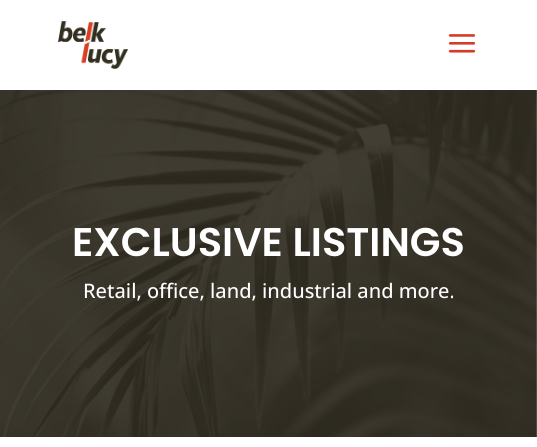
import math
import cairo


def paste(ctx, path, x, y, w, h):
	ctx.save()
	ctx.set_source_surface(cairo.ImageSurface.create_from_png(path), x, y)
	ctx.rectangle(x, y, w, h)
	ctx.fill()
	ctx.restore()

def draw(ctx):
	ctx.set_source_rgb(1, 1, 1)
	ctx.paint()
	paste(ctx, 'media/1.png', 58, 21, 70, 48)
	paste(ctx, 'media/2.png', 448, 34, 28, 19)
	paste(ctx, 'media/3.png', 0, 90, 537, 347)
	ctx.select_font_face('Poppins SemiBold')
	ctx.set_font_size(40)
	ctx.set_source_rgb(1, 1, 1)
	ctx.move_to(72, 256)
	ctx.show_text('EXCLUSIVE LISTINGS')
	ctx.select_font_face('Open Sans Medium')
	ctx.set_font_size(20)
	ctx.move_to(83, 298)
	ctx.show_text('Retail, office, land, industrial and more.')


surface = cairo.ImageSurface(cairo.FORMAT_RGB24, 537, 447)
ctx = cairo.Context(surface)
options = cairo.FontOptions()
options.set_hint_metrics(cairo.HINT_METRICS_OFF)
options.set_hint_style(cairo.HINT_STYLE_NONE)
ctx.set_font_options(options)
ctx.set_miter_limit(4)
draw(ctx)
surface.write_to_png('image.png')
